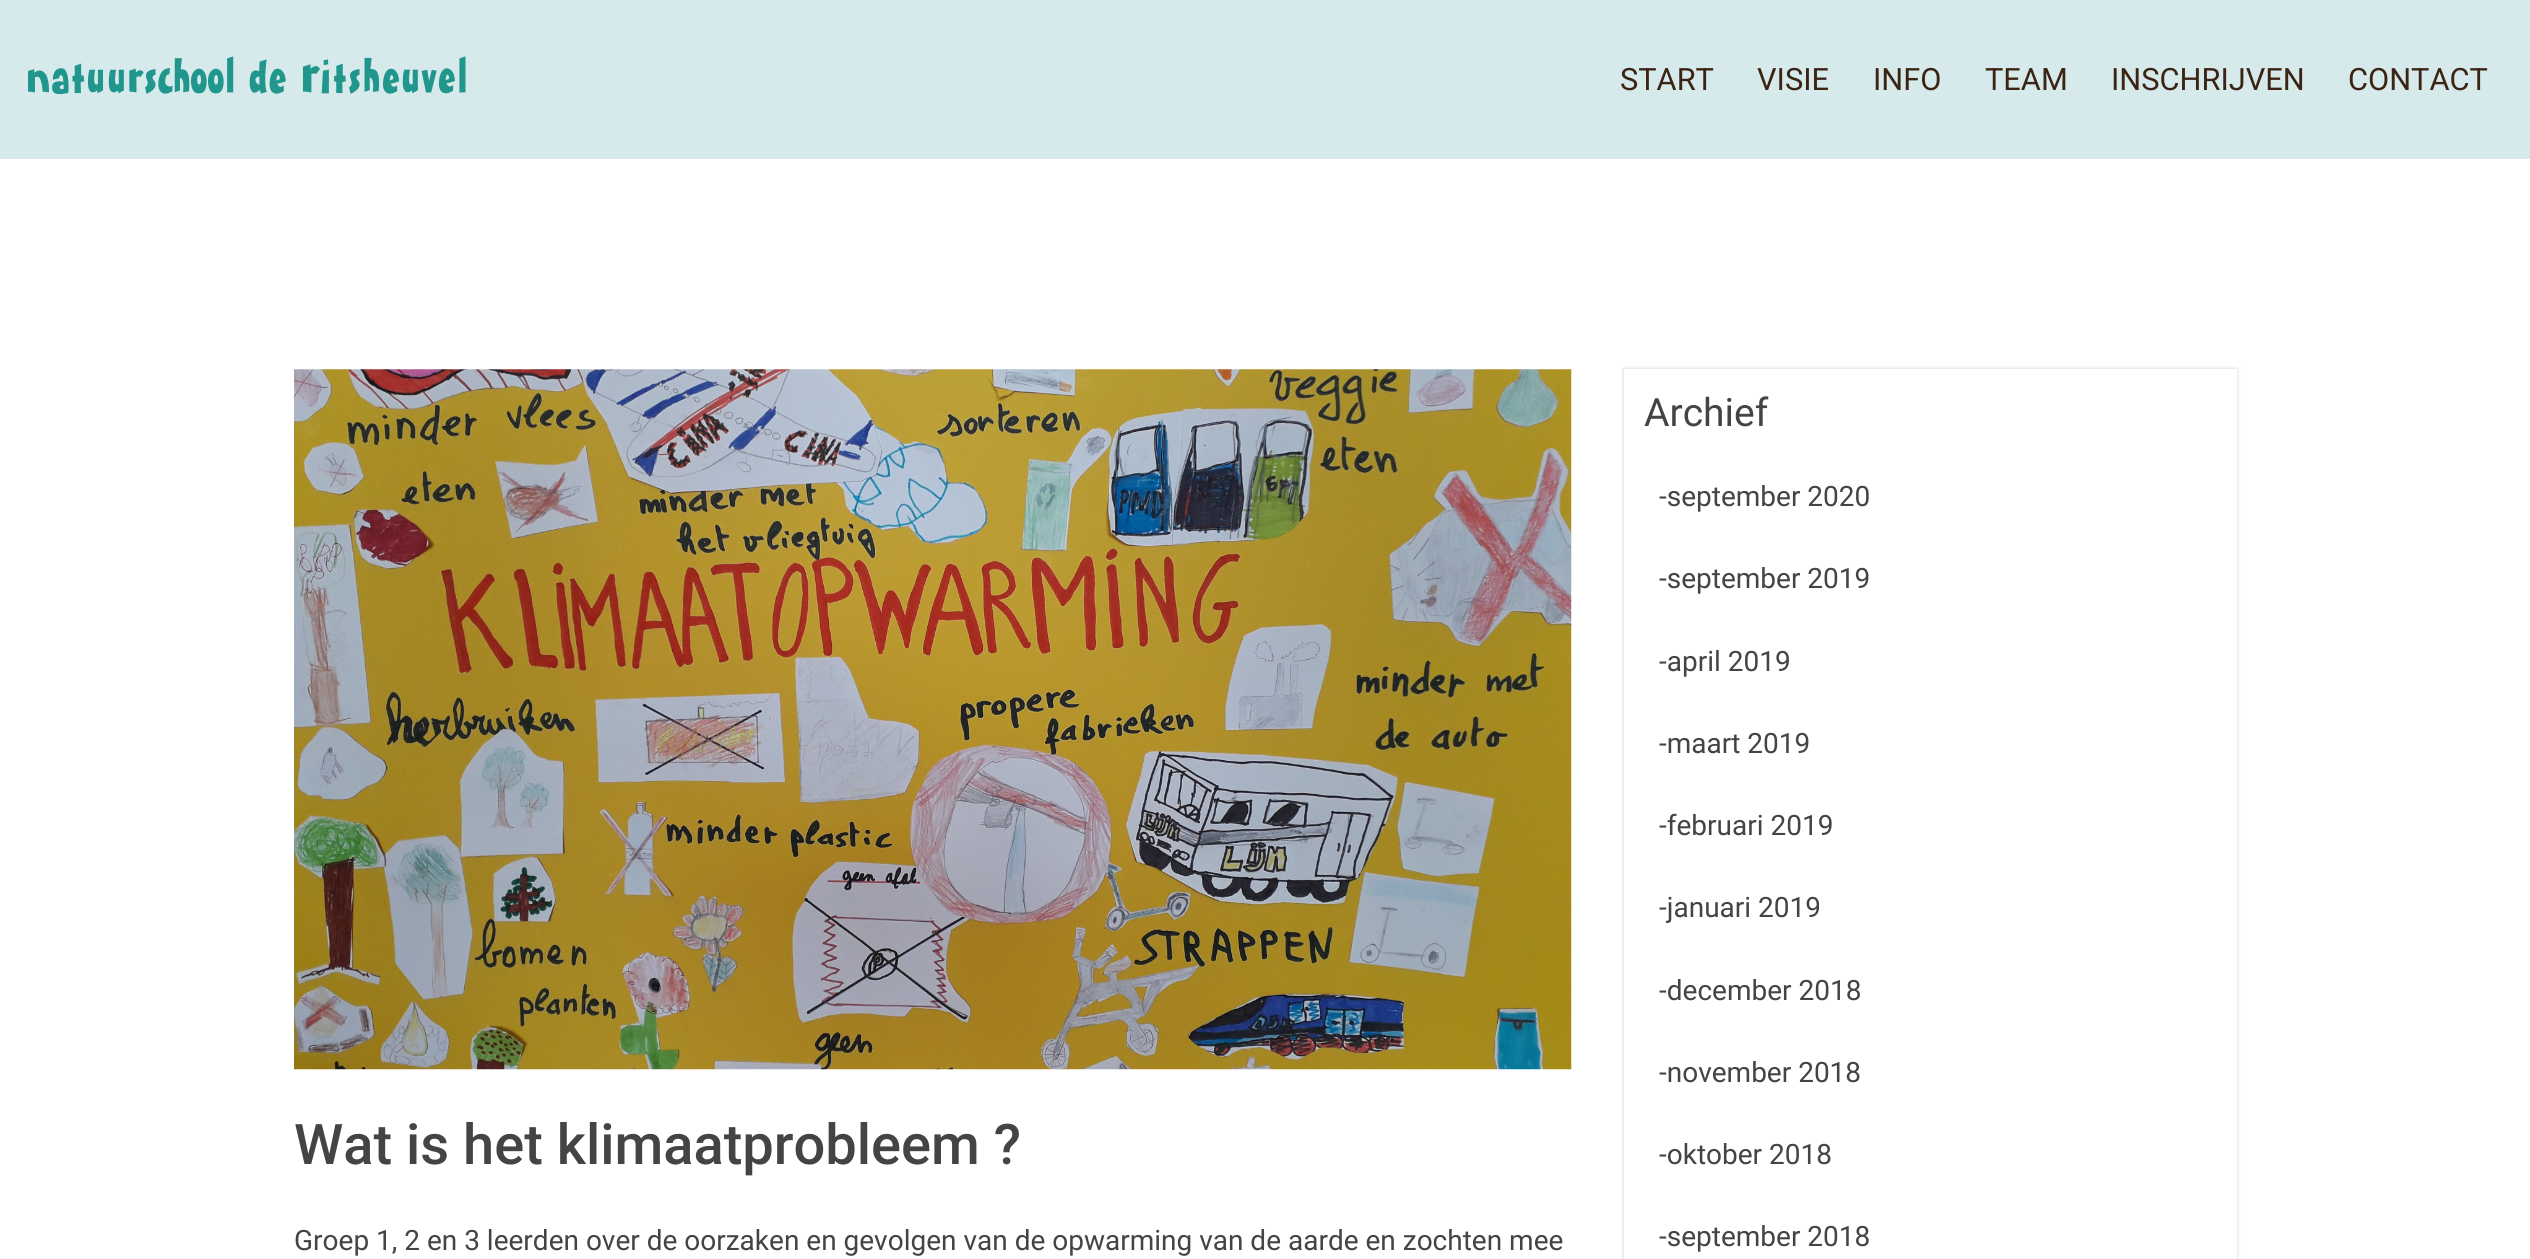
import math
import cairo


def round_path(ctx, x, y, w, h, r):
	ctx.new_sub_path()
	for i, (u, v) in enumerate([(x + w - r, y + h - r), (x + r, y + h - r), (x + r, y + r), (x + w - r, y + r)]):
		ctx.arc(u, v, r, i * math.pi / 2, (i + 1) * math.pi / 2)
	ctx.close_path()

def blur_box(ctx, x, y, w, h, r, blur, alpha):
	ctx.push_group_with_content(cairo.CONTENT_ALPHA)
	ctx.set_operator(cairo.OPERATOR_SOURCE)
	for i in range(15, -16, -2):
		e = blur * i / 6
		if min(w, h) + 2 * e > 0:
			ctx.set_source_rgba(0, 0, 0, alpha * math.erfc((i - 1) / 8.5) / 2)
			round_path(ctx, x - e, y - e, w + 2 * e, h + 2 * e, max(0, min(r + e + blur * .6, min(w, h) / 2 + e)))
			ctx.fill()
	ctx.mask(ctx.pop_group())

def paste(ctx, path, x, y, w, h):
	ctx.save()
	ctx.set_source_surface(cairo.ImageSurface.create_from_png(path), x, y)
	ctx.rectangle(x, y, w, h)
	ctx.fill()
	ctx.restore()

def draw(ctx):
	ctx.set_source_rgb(1, 1, 1)
	ctx.paint()
	ctx.set_source_rgb(0.839, 0.914, 0.918)
	ctx.rectangle(0, 0, 2530, 159)
	ctx.fill()
	paste(ctx, 'media/1.png', 28, 56, 438, 39)
	ctx.select_font_face('Roboto')
	ctx.set_font_size(30.75)
	ctx.set_source_rgb(0.235, 0.141, 0.082)
	for x, y, s in [
		(1620, 90, 'START'),
		(1757, 90, 'VISIE'),
		(1873, 90, 'INFO'),
		(1985, 90, 'TEAM'),
		(2111, 90, 'INSCHRIJVEN'),
		(2348, 90, 'CONTACT'),
	]:
		ctx.move_to(x, y)
		ctx.show_text(s)
	paste(ctx, 'media/2.png', 294, 369, 1278, 701)
	ctx.select_font_face('Roboto Medium')
	ctx.set_font_size(56)
	ctx.set_source_rgb(0.267, 0.267, 0.267)
	ctx.move_to(294, 1164)
	ctx.show_text('Wat is het klimaatprobleem ?')
	ctx.select_font_face('Roboto')
	ctx.set_font_size(28)
	ctx.move_to(294, 1250)
	ctx.show_text('Groep 1, 2 en 3 leerden over de oorzaken en gevolgen van de opwarming van de aarde en zochten mee')
	ctx.save()
	ctx.set_fill_rule(cairo.FILL_RULE_EVEN_ODD)
	ctx.new_path()
	ctx.move_to(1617, 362)
	ctx.line_to(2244, 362)
	ctx.line_to(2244, 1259)
	ctx.line_to(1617, 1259)
	ctx.close_path()
	ctx.move_to(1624, 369)
	ctx.line_to(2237, 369)
	ctx.line_to(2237, 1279)
	ctx.line_to(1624, 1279)
	ctx.close_path()
	ctx.clip()
	ctx.set_source_rgb(0, 0, 0)
	blur_box(ctx, 1624, 369, 613, 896, 0, 2, 0.2)
	ctx.restore()
	ctx.set_font_size(39)
	ctx.move_to(1644, 426)
	ctx.show_text('Archief')
	ctx.set_source_rgb(1, 1, 1)
	ctx.rectangle(2236, 455, 1, 804)
	ctx.fill()
	ctx.set_font_size(28)
	ctx.set_source_rgb(0.267, 0.267, 0.267)
	for x, y, s in [
		(1659, 506, '-september 2020'),
		(1659, 588, '-september 2019'),
		(1659, 671, '-april 2019'),
		(1659, 753, '-maart 2019'),
		(1659, 835, '-februari 2019'),
		(1659, 917, '-januari 2019'),
		(1659, 1000, '-december 2018'),
		(1659, 1082, '-november 2018'),
		(1659, 1164, '-oktober 2018'),
		(1659, 1246, '-september 2018'),
	]:
		ctx.move_to(x, y)
		ctx.show_text(s)


surface = cairo.ImageSurface(cairo.FORMAT_RGB24, 2530, 1259)
ctx = cairo.Context(surface)
options = cairo.FontOptions()
options.set_hint_metrics(cairo.HINT_METRICS_OFF)
options.set_hint_style(cairo.HINT_STYLE_NONE)
ctx.set_font_options(options)
ctx.set_miter_limit(4)
draw(ctx)
surface.write_to_png('image.png')
